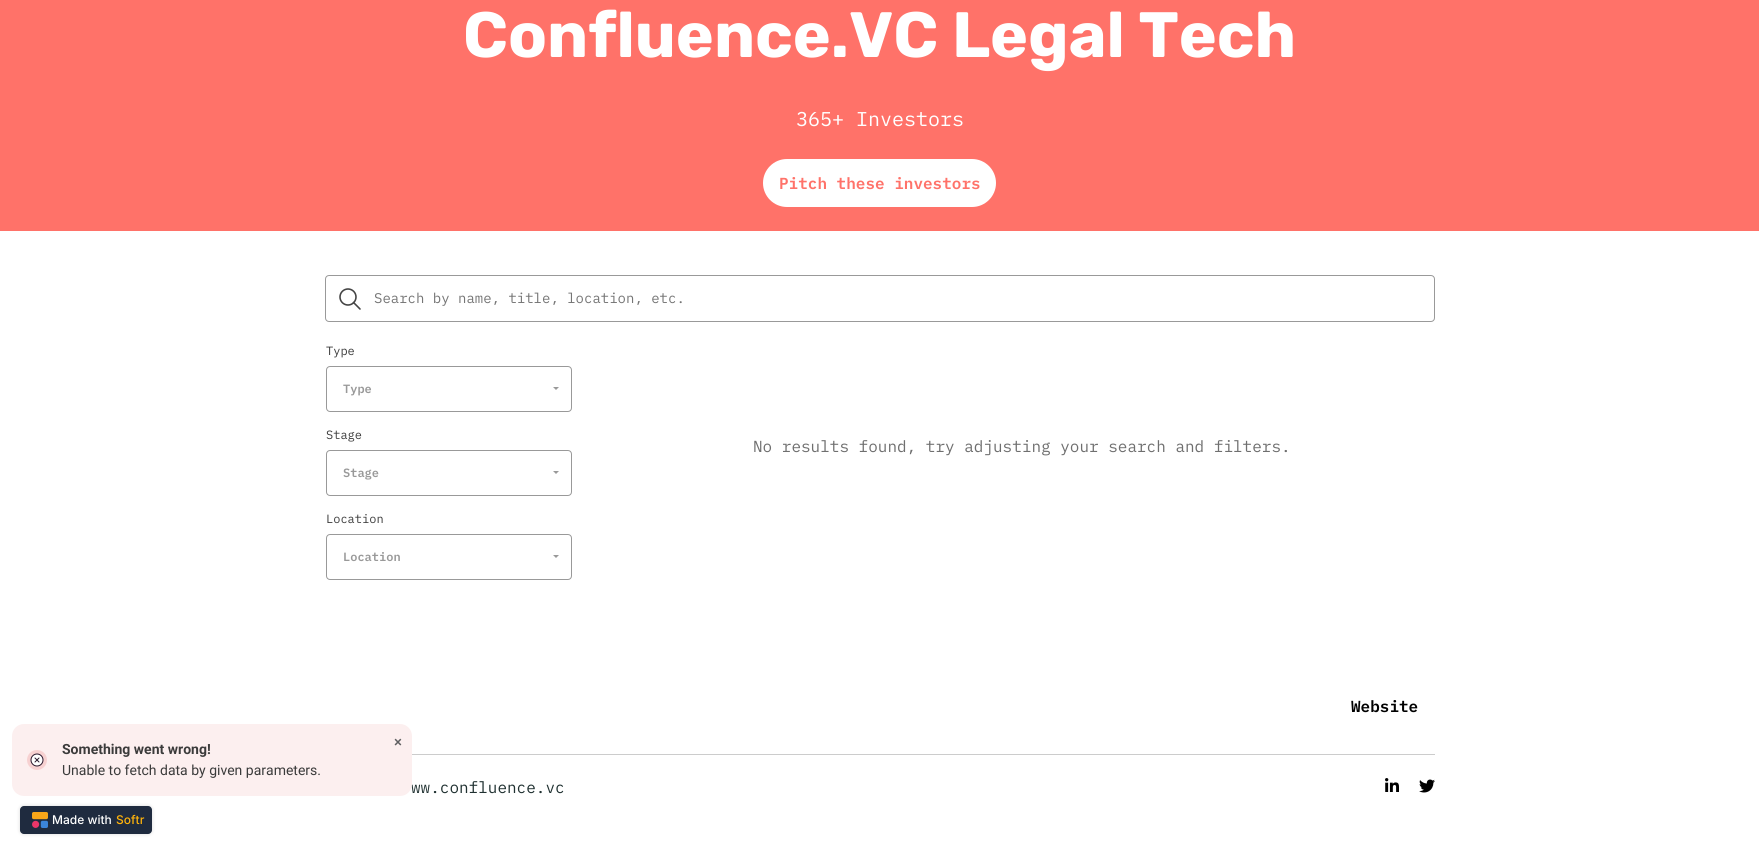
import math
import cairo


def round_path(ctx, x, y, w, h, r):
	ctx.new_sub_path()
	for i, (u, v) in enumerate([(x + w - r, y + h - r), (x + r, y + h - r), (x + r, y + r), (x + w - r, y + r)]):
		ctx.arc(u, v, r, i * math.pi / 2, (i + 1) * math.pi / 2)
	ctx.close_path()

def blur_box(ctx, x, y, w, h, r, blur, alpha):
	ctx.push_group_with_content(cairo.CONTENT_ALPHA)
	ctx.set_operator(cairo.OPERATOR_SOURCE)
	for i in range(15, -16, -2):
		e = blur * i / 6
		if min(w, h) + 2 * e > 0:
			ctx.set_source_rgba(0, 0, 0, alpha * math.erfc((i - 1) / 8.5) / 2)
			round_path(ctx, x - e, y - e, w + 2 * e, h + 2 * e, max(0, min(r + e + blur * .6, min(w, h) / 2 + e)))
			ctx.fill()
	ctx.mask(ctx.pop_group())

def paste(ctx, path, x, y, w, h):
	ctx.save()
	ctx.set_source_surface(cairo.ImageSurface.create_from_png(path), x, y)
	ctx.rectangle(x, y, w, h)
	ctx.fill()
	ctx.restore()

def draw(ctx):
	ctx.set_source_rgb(1, 1, 1)
	ctx.paint()
	ctx.set_source_rgb(1, 0.447, 0.412)
	ctx.rectangle(0, 0, 1759, 231)
	ctx.fill()
	ctx.select_font_face('Rubik', cairo.FONT_SLANT_NORMAL, cairo.FONT_WEIGHT_BOLD)
	ctx.set_font_size(64)
	ctx.set_source_rgb(1, 1, 1)
	ctx.move_to(463, 57)
	ctx.show_text('Confluence.VC Legal Tech')
	ctx.select_font_face('IBM Plex Mono')
	ctx.set_font_size(20)
	ctx.move_to(796, 126)
	ctx.show_text('365+ Investors')
	round_path(ctx, 763, 159, 233, 48, 24)
	ctx.fill()
	ctx.select_font_face('IBM Plex Mono SemiBold')
	ctx.set_font_size(16)
	ctx.set_source_rgb(1, 0.447, 0.412)
	ctx.move_to(779, 189)
	ctx.show_text('Pitch these investors')
	ctx.new_path()
	ctx.move_to(360, 309)
	ctx.line_to(353.5, 302.5)
	ctx.set_source_rgb(0.267, 0.267, 0.267)
	ctx.set_line_width(1.6)
	ctx.set_line_cap(cairo.LINE_CAP_ROUND)
	ctx.set_line_join(cairo.LINE_JOIN_ROUND)
	ctx.stroke()
	ctx.arc(348, 297, 8, 0, 2 * math.pi)
	ctx.set_line_cap(cairo.LINE_CAP_BUTT)
	ctx.set_line_join(cairo.LINE_JOIN_MITER)
	ctx.stroke()
	round_path(ctx, 325.5, 275.5, 1109, 46, 3.5)
	ctx.set_source_rgb(0.6, 0.6, 0.6)
	ctx.set_line_width(1)
	ctx.stroke()
	ctx.select_font_face('IBM Plex Mono')
	ctx.set_font_size(14)
	ctx.set_source_rgb(0.459, 0.459, 0.459)
	ctx.move_to(374, 303)
	ctx.show_text('Search by name, title, location, etc.')
	ctx.set_font_size(12)
	ctx.set_source_rgb(0.231, 0.231, 0.231)
	ctx.move_to(326, 355)
	ctx.show_text('Type')
	round_path(ctx, 326.5, 366.5, 245, 45, 3.5)
	ctx.set_source_rgb(0.6, 0.6, 0.6)
	ctx.stroke()
	ctx.select_font_face('IBM Plex Mono SemiBold')
	ctx.move_to(343, 393)
	ctx.show_text('Type')
	ctx.new_path()
	ctx.move_to(553, 387)
	ctx.line_to(559, 387)
	ctx.line_to(556, 390)
	ctx.close_path()
	ctx.fill()
	ctx.select_font_face('IBM Plex Mono')
	ctx.set_source_rgb(0.231, 0.231, 0.231)
	ctx.move_to(326, 439)
	ctx.show_text('Stage')
	round_path(ctx, 326.5, 450.5, 245, 45, 3.5)
	ctx.set_source_rgb(0.6, 0.6, 0.6)
	ctx.stroke()
	ctx.select_font_face('IBM Plex Mono SemiBold')
	ctx.move_to(343, 477)
	ctx.show_text('Stage')
	ctx.new_path()
	ctx.move_to(553, 471)
	ctx.line_to(559, 471)
	ctx.line_to(556, 474)
	ctx.close_path()
	ctx.fill()
	ctx.select_font_face('IBM Plex Mono')
	ctx.set_source_rgb(0.231, 0.231, 0.231)
	ctx.move_to(326, 523)
	ctx.show_text('Location')
	round_path(ctx, 326.5, 534.5, 245, 45, 3.5)
	ctx.set_source_rgb(0.6, 0.6, 0.6)
	ctx.stroke()
	ctx.select_font_face('IBM Plex Mono SemiBold')
	ctx.move_to(343, 561)
	ctx.show_text('Location')
	ctx.new_path()
	ctx.move_to(553, 555)
	ctx.line_to(559, 555)
	ctx.line_to(556, 558)
	ctx.close_path()
	ctx.fill()
	ctx.select_font_face('IBM Plex Mono')
	ctx.set_font_size(16)
	ctx.set_source_rgb(0.435, 0.435, 0.435)
	ctx.move_to(753, 452)
	ctx.show_text('No results found, try adjusting your search and filters.')
	ctx.select_font_face('IBM Plex Mono SemiBold')
	ctx.set_source_rgb(0, 0, 0)
	ctx.move_to(1351, 712)
	ctx.show_text('Website')
	ctx.set_source_rgb(0.8, 0.8, 0.8)
	ctx.rectangle(412, 754, 1023, 1)
	ctx.fill()
	ctx.select_font_face('IBM Plex Mono')
	ctx.set_source_rgb(0.125, 0.192, 0.192)
	ctx.move_to(411, 793)
	ctx.show_text('ww.confluence.vc')
	paste(ctx, 'media/1.png', 1385, 778, 14, 14)
	paste(ctx, 'media/2.png', 1419, 779, 16, 14)
	ctx.set_source_rgb(0, 0, 0)
	blur_box(ctx, 20, 806, 132, 28, 4, 2, 0.15)
	ctx.set_source_rgb(0.122, 0.169, 0.247)
	round_path(ctx, 20, 806, 132, 28, 4)
	ctx.fill()
	paste(ctx, 'media/3.png', 32, 812, 16, 16)
	ctx.select_font_face('Inter Medium')
	ctx.set_font_size(12)
	ctx.set_source_rgb(1, 1, 1)
	ctx.move_to(52, 824)
	ctx.show_text('Made with')
	ctx.set_source_rgb(1, 0.702, 0.043)
	ctx.move_to(116, 824)
	ctx.show_text('Softr')
	ctx.set_source_rgb(0.988, 0.937, 0.937)
	round_path(ctx, 12, 724, 400, 72, 12)
	ctx.fill()
	paste(ctx, 'media/4.png', 27, 750, 20, 20)
	ctx.select_font_face('Roboto Medium')
	ctx.set_font_size(15)
	ctx.set_source_rgb(0.373, 0.373, 0.38)
	ctx.move_to(394, 747)
	ctx.show_text('×')
	ctx.select_font_face('Roboto', cairo.FONT_SLANT_NORMAL, cairo.FONT_WEIGHT_BOLD)
	ctx.set_font_size(14)
	ctx.set_source_rgb(0.231, 0.231, 0.231)
	ctx.move_to(62, 754)
	ctx.show_text('Something went wrong!')
	ctx.select_font_face('Roboto')
	ctx.move_to(62, 775)
	ctx.show_text('Unable to fetch data by given parameters.')


surface = cairo.ImageSurface(cairo.FORMAT_RGB24, 1759, 858)
ctx = cairo.Context(surface)
options = cairo.FontOptions()
options.set_hint_metrics(cairo.HINT_METRICS_OFF)
options.set_hint_style(cairo.HINT_STYLE_NONE)
ctx.set_font_options(options)
ctx.set_miter_limit(4)
draw(ctx)
surface.write_to_png('image.png')
